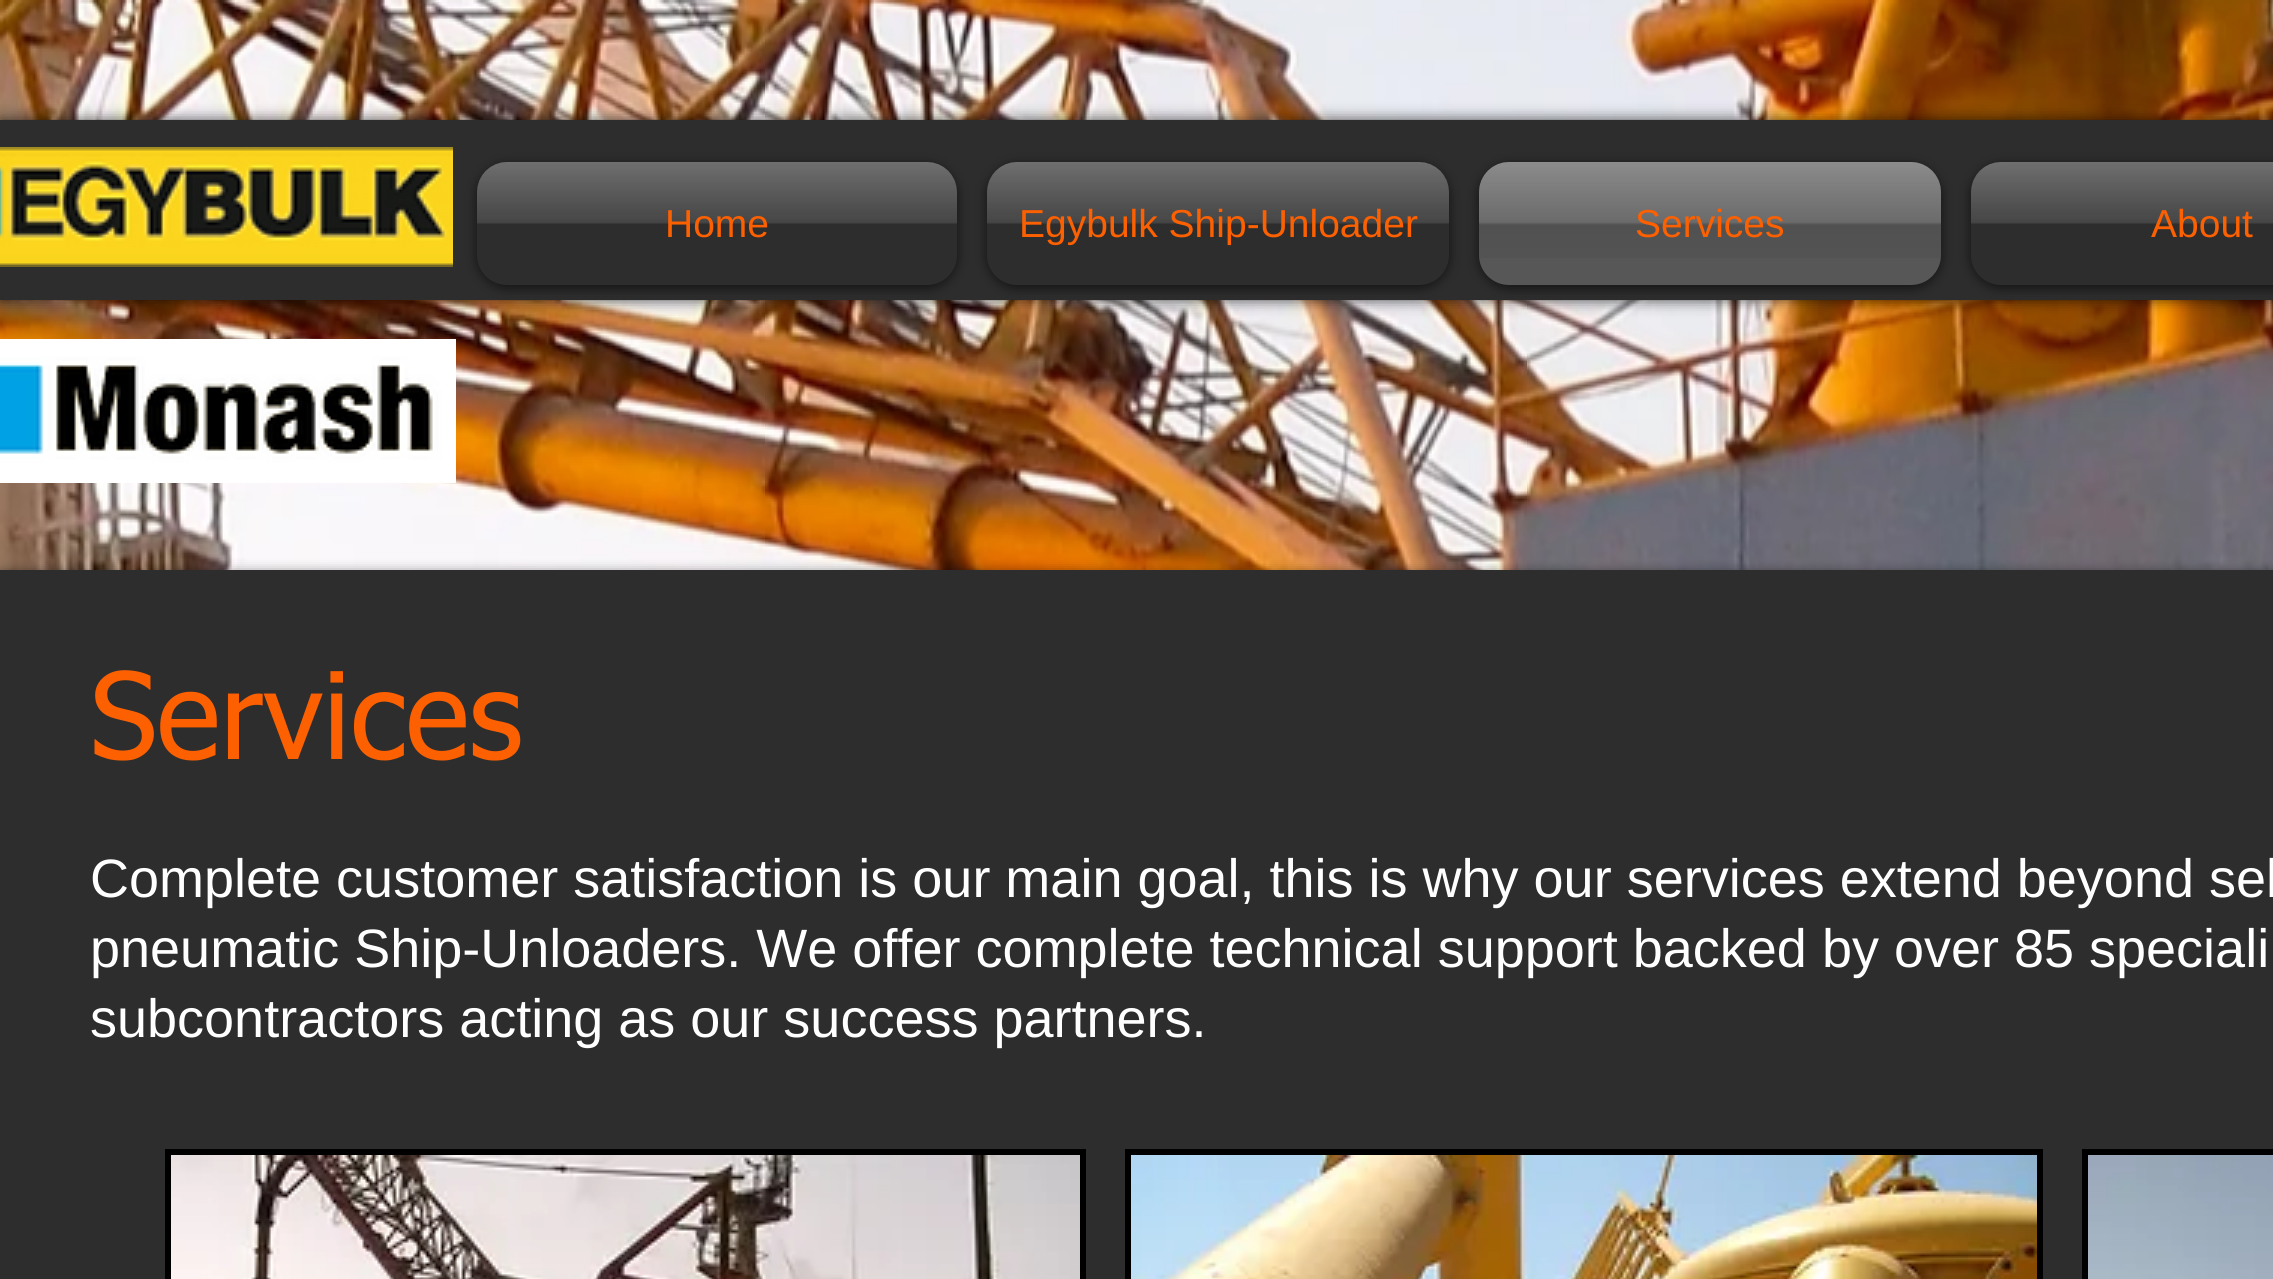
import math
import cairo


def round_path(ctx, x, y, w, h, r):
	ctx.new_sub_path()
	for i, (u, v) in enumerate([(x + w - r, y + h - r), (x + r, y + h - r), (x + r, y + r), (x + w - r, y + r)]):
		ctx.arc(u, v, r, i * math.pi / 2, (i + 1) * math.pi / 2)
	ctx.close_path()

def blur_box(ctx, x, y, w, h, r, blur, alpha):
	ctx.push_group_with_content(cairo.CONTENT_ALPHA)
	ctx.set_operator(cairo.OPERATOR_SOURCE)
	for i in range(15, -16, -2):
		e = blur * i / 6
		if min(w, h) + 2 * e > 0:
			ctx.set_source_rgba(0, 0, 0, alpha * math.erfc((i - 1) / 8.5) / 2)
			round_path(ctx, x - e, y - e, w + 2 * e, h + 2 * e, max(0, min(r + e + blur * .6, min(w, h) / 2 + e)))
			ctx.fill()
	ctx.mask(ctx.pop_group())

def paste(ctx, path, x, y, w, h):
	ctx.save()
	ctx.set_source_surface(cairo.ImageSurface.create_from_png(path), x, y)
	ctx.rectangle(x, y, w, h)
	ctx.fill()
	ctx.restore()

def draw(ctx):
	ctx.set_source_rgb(1, 1, 1)
	ctx.paint()
	paste(ctx, 'media/1.png', 0, 0, 2273, 570)
	ctx.set_source_rgb(0, 0, 0)
	blur_box(ctx, 0, 120, 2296, 180, 0, 7.5, 0.7)
	ctx.set_source_rgb(0.176, 0.176, 0.176)
	ctx.rectangle(0, 120, 2273, 180)
	ctx.fill()
	paste(ctx, 'media/2.png', 0, 147, 453, 120)
	ctx.set_source_rgb(0, 0, 0)
	blur_box(ctx, 477, 165, 480, 123, 30, 6, 0.6)
	ctx.set_source_rgb(0.176, 0.176, 0.176)
	round_path(ctx, 477, 162, 480, 123, 30)
	ctx.fill()
	paste(ctx, 'media/3.png', 477, 162, 480, 62)
	ctx.select_font_face('Liberation Sans')
	ctx.set_font_size(39)
	ctx.set_source_rgb(0.988, 0.376, 0)
	ctx.move_to(665, 237)
	ctx.show_text('Home')
	ctx.set_source_rgb(0, 0, 0)
	blur_box(ctx, 987, 165, 462, 123, 30, 6, 0.6)
	ctx.set_source_rgb(0.176, 0.176, 0.176)
	round_path(ctx, 987, 162, 462, 123, 30)
	ctx.fill()
	paste(ctx, 'media/4.png', 987, 162, 462, 62)
	ctx.set_source_rgb(0.988, 0.376, 0)
	ctx.move_to(1019, 237)
	ctx.show_text('Egybulk Ship-Unloader')
	ctx.set_source_rgb(0, 0, 0)
	blur_box(ctx, 1479, 165, 462, 123, 30, 6, 0.6)
	ctx.set_source_rgb(0.341, 0.341, 0.341)
	round_path(ctx, 1479, 162, 462, 123, 30)
	ctx.fill()
	paste(ctx, 'media/5.png', 1479, 162, 462, 96)
	ctx.set_source_rgb(0.988, 0.376, 0)
	ctx.move_to(1635, 237)
	ctx.show_text('Services')
	ctx.set_source_rgb(0, 0, 0)
	blur_box(ctx, 1971, 165, 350, 123, 30, 6, 0.6)
	ctx.set_source_rgb(0.176, 0.176, 0.176)
	round_path(ctx, 1971, 162, 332, 123, 30)
	ctx.fill()
	paste(ctx, 'media/6.png', 1971, 162, 302, 62)
	ctx.set_source_rgb(0.988, 0.376, 0)
	ctx.move_to(2151, 237)
	ctx.show_text('About')
	paste(ctx, 'media/7.png', 0, 339, 456, 144)
	ctx.set_source_rgb(0, 0, 0)
	blur_box(ctx, 0, 573, 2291, 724, 0, 6, 0.6)
	ctx.set_source_rgb(0.176, 0.176, 0.176)
	ctx.rectangle(0, 570, 2273, 709)
	ctx.fill()
	ctx.select_font_face('tahoma')
	ctx.set_font_size(120)
	ctx.set_source_rgb(0.988, 0.376, 0)
	ctx.move_to(90, 759)
	ctx.show_text('Services')
	ctx.select_font_face('Liberation Sans')
	ctx.set_font_size(54)
	ctx.set_source_rgb(1, 1, 1)
	for x, y, s in [
		(90, 897, 'Complete customer satisfaction is our main goal, this is why our services extend beyond sel'),
		(90, 967, 'pneumatic Ship-Unloaders. We offer complete technical support backed by over 85 speciali'),
		(90, 1037, 'subcontractors acting as our success partners.'),
	]:
		ctx.move_to(x, y)
		ctx.show_text(s)
	ctx.set_source_rgb(0, 0, 0)
	ctx.rectangle(165, 1149, 921, 130)
	ctx.fill()
	paste(ctx, 'media/8.png', 171, 1155, 909, 124)
	ctx.rectangle(1125, 1149, 918, 130)
	ctx.fill()
	paste(ctx, 'media/9.png', 1131, 1155, 906, 124)
	ctx.rectangle(2082, 1149, 191, 130)
	ctx.fill()
	paste(ctx, 'media/10.png', 2088, 1155, 185, 124)


surface = cairo.ImageSurface(cairo.FORMAT_RGB24, 2273, 1279)
ctx = cairo.Context(surface)
options = cairo.FontOptions()
options.set_hint_metrics(cairo.HINT_METRICS_OFF)
options.set_hint_style(cairo.HINT_STYLE_NONE)
ctx.set_font_options(options)
ctx.set_miter_limit(4)
draw(ctx)
surface.write_to_png('image.png')
